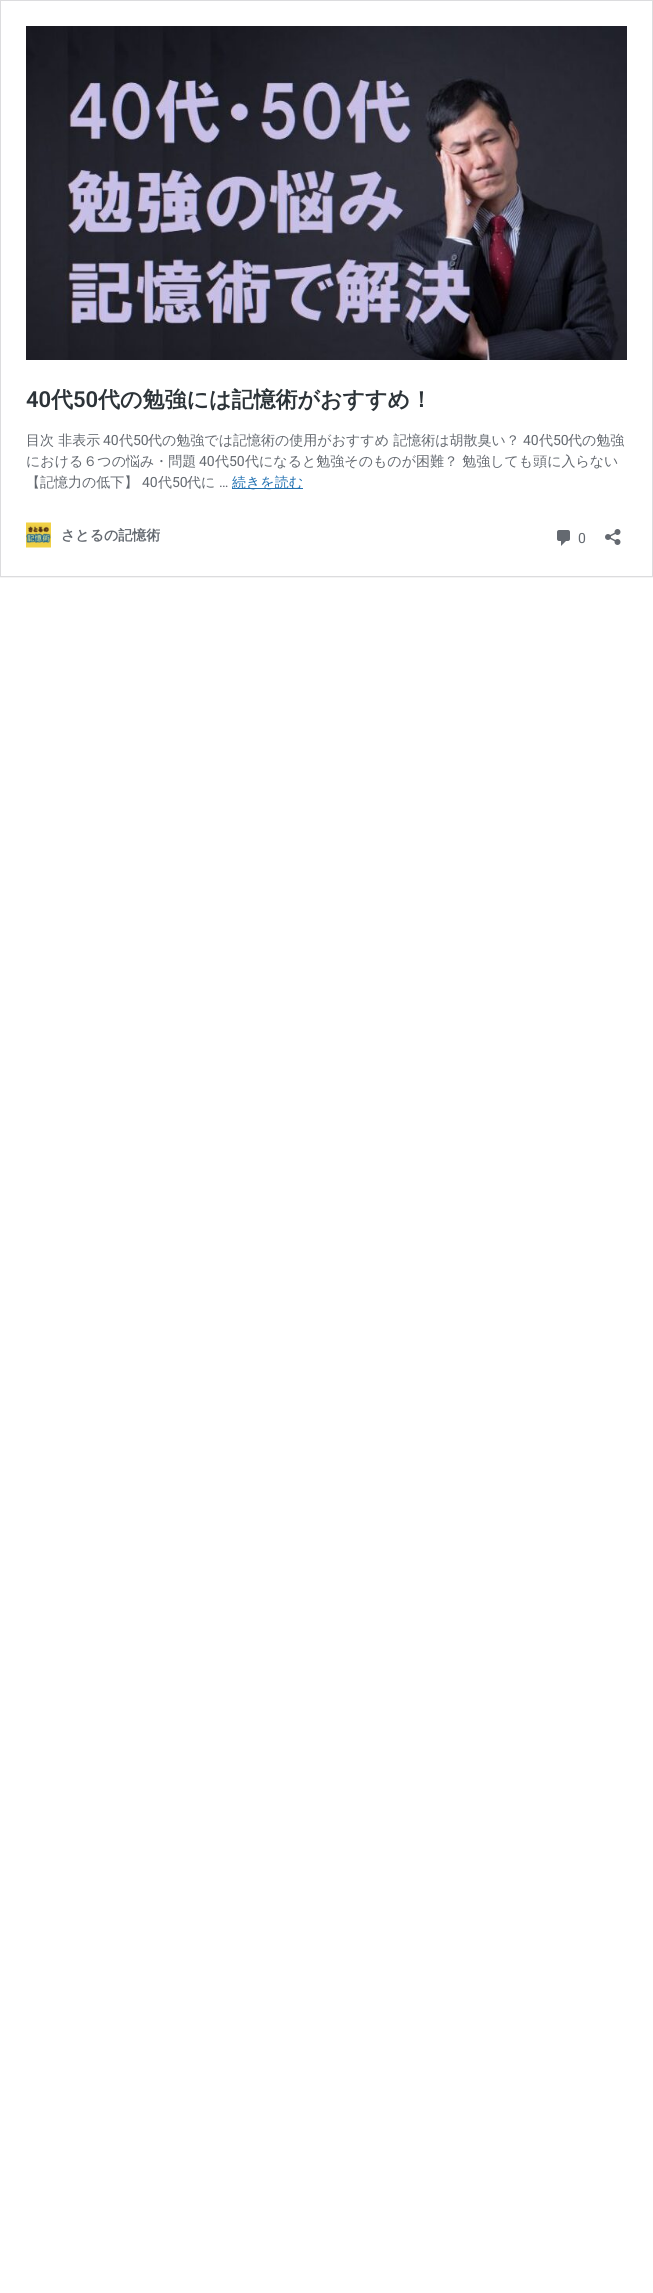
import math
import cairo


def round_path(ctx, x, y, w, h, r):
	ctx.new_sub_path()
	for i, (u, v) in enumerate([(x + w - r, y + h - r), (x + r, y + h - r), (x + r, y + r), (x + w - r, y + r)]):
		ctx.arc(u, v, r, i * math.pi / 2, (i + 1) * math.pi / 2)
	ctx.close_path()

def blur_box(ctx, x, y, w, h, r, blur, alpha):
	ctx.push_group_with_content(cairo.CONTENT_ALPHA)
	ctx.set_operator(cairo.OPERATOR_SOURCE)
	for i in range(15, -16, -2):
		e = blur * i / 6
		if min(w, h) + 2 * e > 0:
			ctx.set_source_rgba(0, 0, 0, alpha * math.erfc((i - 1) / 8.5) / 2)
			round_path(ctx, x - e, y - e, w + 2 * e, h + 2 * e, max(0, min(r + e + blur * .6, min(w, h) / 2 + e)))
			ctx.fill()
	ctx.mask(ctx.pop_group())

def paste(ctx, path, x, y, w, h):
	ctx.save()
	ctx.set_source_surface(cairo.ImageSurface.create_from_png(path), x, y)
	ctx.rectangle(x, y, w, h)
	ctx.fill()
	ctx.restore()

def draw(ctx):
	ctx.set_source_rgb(1, 1, 1)
	ctx.paint()
	ctx.save()
	ctx.rectangle(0, 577, 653, 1)
	ctx.clip()
	ctx.set_source_rgb(0, 0, 0)
	blur_box(ctx, 0, 1, 653, 577, 0, 0.5, 0.05)
	ctx.restore()
	ctx.rectangle(0.5, 0.5, 652, 576)
	ctx.set_source_rgb(0.863, 0.863, 0.871)
	ctx.set_line_width(1)
	ctx.stroke()
	paste(ctx, 'media/1.png', 26, 26, 601, 334)
	ctx.select_font_face('Roboto SemiBold')
	ctx.set_font_size(22)
	ctx.set_source_rgb(0.173, 0.2, 0.22)
	ctx.move_to(26, 407)
	ctx.show_text('40')
	ctx.select_font_face('WenQuanYi Zen Hei', cairo.FONT_SLANT_NORMAL, cairo.FONT_WEIGHT_BOLD)
	ctx.move_to(51, 407)
	ctx.show_text('代')
	ctx.select_font_face('Roboto SemiBold')
	ctx.move_to(73, 407)
	ctx.show_text('50')
	ctx.select_font_face('WenQuanYi Zen Hei', cairo.FONT_SLANT_NORMAL, cairo.FONT_WEIGHT_BOLD)
	ctx.move_to(98, 407)
	ctx.show_text('代の勉強には記憶術がおすすめ！')
	ctx.select_font_face('WenQuanYi Zen Hei Medium')
	ctx.set_font_size(14)
	ctx.set_source_rgb(0.392, 0.412, 0.439)
	ctx.move_to(26, 445)
	ctx.show_text('目次 非表示')
	ctx.select_font_face('Roboto')
	ctx.move_to(103, 445)
	ctx.show_text('40')
	ctx.select_font_face('WenQuanYi Zen Hei Medium')
	ctx.move_to(119, 445)
	ctx.show_text('代')
	ctx.select_font_face('Roboto')
	ctx.move_to(133, 445)
	ctx.show_text('50')
	ctx.select_font_face('WenQuanYi Zen Hei Medium')
	ctx.move_to(148, 445)
	ctx.show_text('代の勉強では記憶術の使用がおすすめ 記憶術は胡散臭い？')
	ctx.select_font_face('Roboto')
	ctx.move_to(523, 445)
	ctx.show_text('40')
	ctx.select_font_face('WenQuanYi Zen Hei Medium')
	ctx.move_to(539, 445)
	ctx.show_text('代')
	ctx.select_font_face('Roboto')
	ctx.move_to(553, 445)
	ctx.show_text('50')
	ctx.select_font_face('WenQuanYi Zen Hei Medium')
	ctx.move_to(568, 445)
	ctx.show_text('代の勉強')
	ctx.move_to(26, 466)
	ctx.show_text('における６つの悩み・問題')
	ctx.select_font_face('Roboto')
	ctx.move_to(199, 466)
	ctx.show_text('40')
	ctx.select_font_face('WenQuanYi Zen Hei Medium')
	ctx.move_to(215, 466)
	ctx.show_text('代')
	ctx.select_font_face('Roboto')
	ctx.move_to(229, 466)
	ctx.show_text('50')
	ctx.select_font_face('WenQuanYi Zen Hei Medium')
	ctx.move_to(245, 466)
	ctx.show_text('代になると勉強そのものが困難？ 勉強しても頭に入らない')
	ctx.move_to(26, 487)
	ctx.show_text('【記憶力の低下】')
	ctx.select_font_face('Roboto')
	ctx.move_to(142, 487)
	ctx.show_text('40')
	ctx.select_font_face('WenQuanYi Zen Hei Medium')
	ctx.move_to(158, 487)
	ctx.show_text('代')
	ctx.select_font_face('Roboto')
	ctx.move_to(172, 487)
	ctx.show_text('50')
	ctx.select_font_face('WenQuanYi Zen Hei Medium')
	ctx.move_to(187, 487)
	ctx.show_text('代に')
	ctx.select_font_face('Roboto')
	ctx.move_to(219, 487)
	ctx.show_text('…')
	ctx.set_source_rgb(0.133, 0.443, 0.694)
	ctx.rectangle(232, 488, 71, 1)
	ctx.fill()
	ctx.select_font_face('WenQuanYi Zen Hei Medium')
	ctx.move_to(232, 487)
	ctx.show_text('続きを読む')
	paste(ctx, 'media/2.png', 26, 522, 25, 26)
	ctx.select_font_face('WenQuanYi Zen Hei', cairo.FONT_SLANT_NORMAL, cairo.FONT_WEIGHT_BOLD)
	ctx.set_source_rgb(0.392, 0.412, 0.439)
	ctx.move_to(61, 540)
	ctx.show_text('さとるの記憶術')
	paste(ctx, 'media/3.png', 557, 530, 13, 16)
	ctx.select_font_face('Roboto')
	ctx.move_to(578, 543)
	ctx.show_text('0')
	paste(ctx, 'media/4.png', 605, 529, 16, 16)


surface = cairo.ImageSurface(cairo.FORMAT_RGB24, 653, 2293)
ctx = cairo.Context(surface)
options = cairo.FontOptions()
options.set_hint_metrics(cairo.HINT_METRICS_OFF)
options.set_hint_style(cairo.HINT_STYLE_NONE)
ctx.set_font_options(options)
ctx.set_miter_limit(4)
draw(ctx)
surface.write_to_png('image.png')
